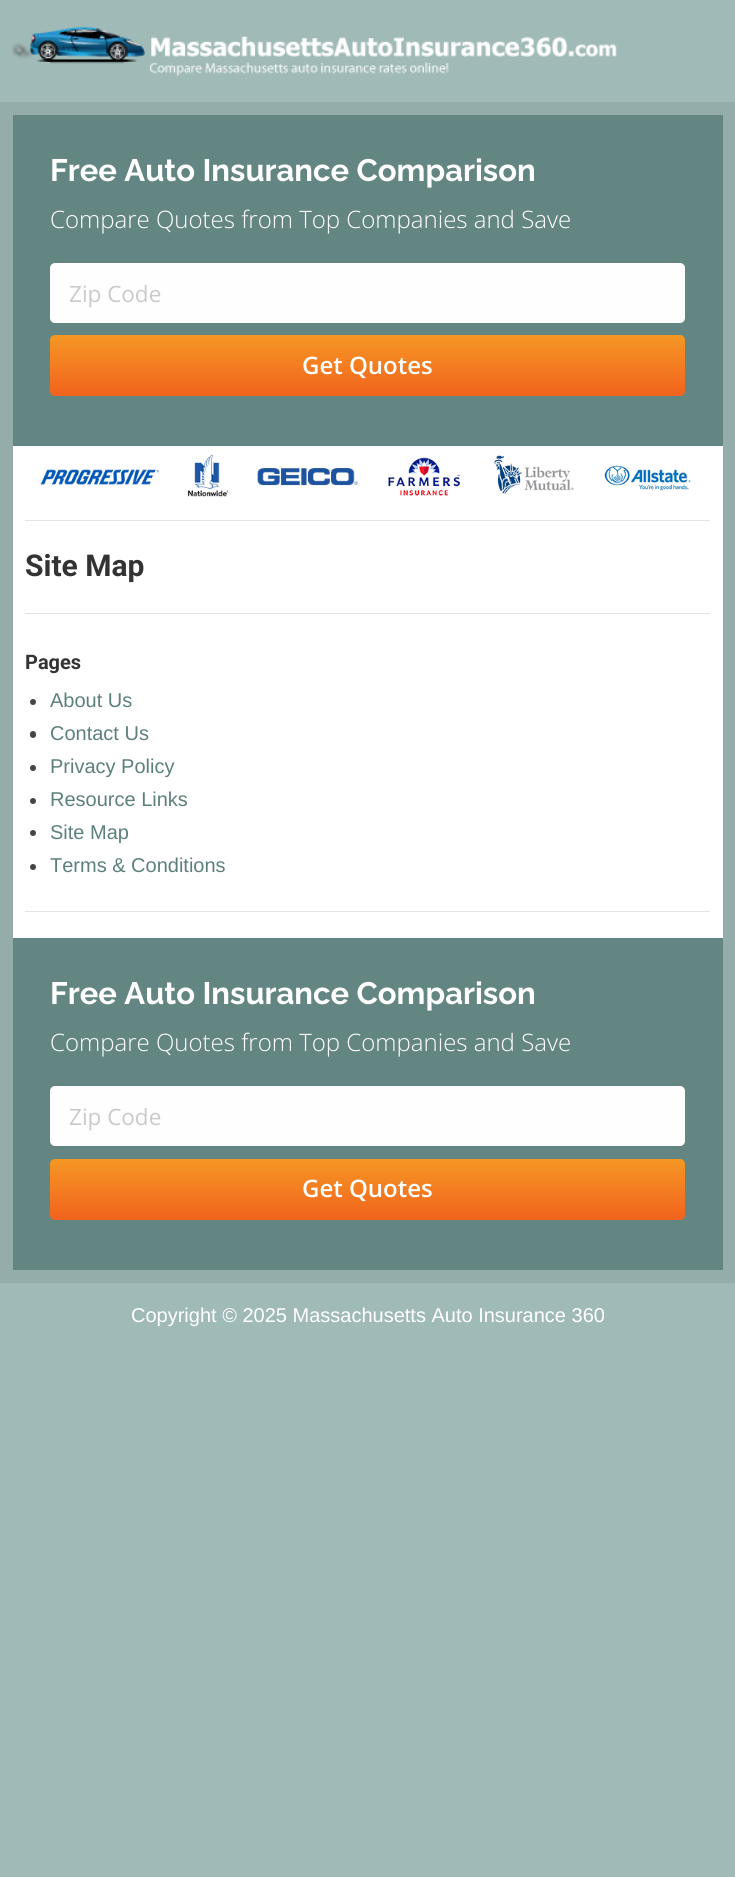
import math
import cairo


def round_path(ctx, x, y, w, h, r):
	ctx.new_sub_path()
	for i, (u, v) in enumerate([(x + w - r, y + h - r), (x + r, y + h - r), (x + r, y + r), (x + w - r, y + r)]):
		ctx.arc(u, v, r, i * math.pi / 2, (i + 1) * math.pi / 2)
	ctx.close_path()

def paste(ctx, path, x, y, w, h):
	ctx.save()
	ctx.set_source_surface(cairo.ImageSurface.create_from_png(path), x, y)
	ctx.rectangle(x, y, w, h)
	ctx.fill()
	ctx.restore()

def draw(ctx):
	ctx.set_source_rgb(0.627, 0.729, 0.718)
	ctx.paint()
	paste(ctx, 'media/1.png', 12, 26, 605, 50)
	ctx.set_source_rgb(0.584, 0.678, 0.667)
	ctx.rectangle(0, 102, 735, 1181)
	ctx.fill()
	ctx.set_source_rgb(0.392, 0.525, 0.514)
	ctx.rectangle(13, 115, 710, 331)
	ctx.fill()
	ctx.select_font_face('Raleway', cairo.FONT_SLANT_NORMAL, cairo.FONT_WEIGHT_BOLD)
	ctx.set_font_size(31)
	ctx.set_source_rgb(1, 1, 1)
	ctx.move_to(50, 181)
	ctx.show_text('Free Auto Insurance Comparison')
	ctx.select_font_face('Open Sans Light')
	ctx.set_font_size(24)
	ctx.move_to(50, 228)
	ctx.show_text('Compare Quotes from Top Companies and Save')
	ctx.set_source_rgb(0.996, 0.996, 0.996)
	round_path(ctx, 50, 263, 635, 60, 5)
	ctx.fill()
	ctx.select_font_face('Open Sans')
	ctx.set_font_size(22.5)
	ctx.set_source_rgb(0.792, 0.792, 0.792)
	ctx.move_to(69, 302)
	ctx.show_text('Zip Code')
	gradient = cairo.LinearGradient(368, 335, 368, 396)
	gradient.add_color_stop_rgba(0, 0.961, 0.592, 0.141, 1)
	gradient.add_color_stop_rgba(1, 0.945, 0.388, 0.114, 1)
	ctx.set_source(gradient)
	round_path(ctx, 50, 335, 635, 61, 5)
	ctx.fill()
	ctx.select_font_face('Open Sans SemiBold')
	ctx.set_font_size(24)
	ctx.set_source_rgb(1, 1, 1)
	ctx.move_to(302, 374)
	ctx.show_text('Get Quotes')
	ctx.rectangle(13, 446, 710, 492)
	ctx.fill()
	paste(ctx, 'media/2.png', 40, 454, 651, 43)
	ctx.set_source_rgb(0.894, 0.894, 0.894)
	ctx.rectangle(25, 520, 685, 1)
	ctx.fill()
	ctx.rectangle(25, 613, 685, 1)
	ctx.fill()
	ctx.select_font_face('Roboto', cairo.FONT_SLANT_NORMAL, cairo.FONT_WEIGHT_BOLD)
	ctx.set_font_size(30)
	ctx.set_source_rgb(0.2, 0.2, 0.2)
	ctx.move_to(25, 576)
	ctx.show_text('Site Map')
	ctx.set_source_rgb(0.894, 0.894, 0.894)
	ctx.rectangle(25, 911, 685, 1)
	ctx.fill()
	ctx.set_font_size(20)
	ctx.set_source_rgb(0.2, 0.2, 0.2)
	ctx.move_to(25, 669)
	ctx.show_text('Pages')
	ctx.set_source_rgb(0.271, 0.271, 0.271)
	ctx.new_path()
	ctx.arc(33, 702, 3, 0, 2 * math.pi)
	ctx.fill()
	ctx.select_font_face('Liberation Sans')
	ctx.set_source_rgb(0.361, 0.502, 0.486)
	ctx.move_to(50, 707)
	ctx.show_text('About Us')
	ctx.set_source_rgb(0.271, 0.271, 0.271)
	round_path(ctx, 30, 731, 6, 7, 3)
	ctx.fill()
	ctx.set_source_rgb(0.361, 0.502, 0.486)
	ctx.move_to(50, 740)
	ctx.show_text('Contact Us')
	ctx.set_source_rgb(0.271, 0.271, 0.271)
	ctx.new_path()
	ctx.arc(33, 768, 3, 0, 2 * math.pi)
	ctx.fill()
	ctx.set_source_rgb(0.361, 0.502, 0.486)
	ctx.move_to(50, 773)
	ctx.show_text('Privacy Policy')
	ctx.set_source_rgb(0.271, 0.271, 0.271)
	ctx.new_path()
	ctx.arc(33, 801, 3, 0, 2 * math.pi)
	ctx.fill()
	ctx.set_source_rgb(0.361, 0.502, 0.486)
	ctx.move_to(50, 806)
	ctx.show_text('Resource Links')
	ctx.set_source_rgb(0.271, 0.271, 0.271)
	ctx.new_path()
	ctx.arc(33, 833, 3, 0, 2 * math.pi)
	ctx.fill()
	ctx.set_source_rgb(0.361, 0.502, 0.486)
	ctx.move_to(50, 839)
	ctx.show_text('Site Map')
	ctx.set_source_rgb(0.271, 0.271, 0.271)
	ctx.new_path()
	ctx.arc(33, 867, 3, 0, 2 * math.pi)
	ctx.fill()
	ctx.set_source_rgb(0.361, 0.502, 0.486)
	ctx.move_to(50, 872)
	ctx.show_text('Terms & Conditions')
	ctx.set_source_rgb(0.392, 0.525, 0.514)
	ctx.rectangle(13, 938, 710, 332)
	ctx.fill()
	ctx.select_font_face('Raleway', cairo.FONT_SLANT_NORMAL, cairo.FONT_WEIGHT_BOLD)
	ctx.set_font_size(31)
	ctx.set_source_rgb(1, 1, 1)
	ctx.move_to(50, 1004)
	ctx.show_text('Free Auto Insurance Comparison')
	ctx.select_font_face('Open Sans Light')
	ctx.set_font_size(24)
	ctx.move_to(50, 1051)
	ctx.show_text('Compare Quotes from Top Companies and Save')
	ctx.set_source_rgb(0.996, 0.996, 0.996)
	round_path(ctx, 50, 1086, 635, 60, 5)
	ctx.fill()
	ctx.select_font_face('Open Sans')
	ctx.set_font_size(22.5)
	ctx.set_source_rgb(0.792, 0.792, 0.792)
	ctx.move_to(69, 1125)
	ctx.show_text('Zip Code')
	gradient = cairo.LinearGradient(368, 1159, 368, 1220)
	gradient.add_color_stop_rgba(0, 0.961, 0.592, 0.141, 1)
	gradient.add_color_stop_rgba(1, 0.945, 0.388, 0.114, 1)
	ctx.set_source(gradient)
	round_path(ctx, 50, 1159, 635, 61, 5)
	ctx.fill()
	ctx.select_font_face('Open Sans SemiBold')
	ctx.set_font_size(24)
	ctx.set_source_rgb(1, 1, 1)
	ctx.move_to(302, 1197)
	ctx.show_text('Get Quotes')
	ctx.select_font_face('Liberation Sans')
	ctx.set_font_size(20)
	ctx.move_to(131, 1322)
	ctx.show_text('Copyright © 2025 Massachusetts Auto Insurance 360')


surface = cairo.ImageSurface(cairo.FORMAT_RGB24, 735, 1877)
ctx = cairo.Context(surface)
options = cairo.FontOptions()
options.set_hint_metrics(cairo.HINT_METRICS_OFF)
options.set_hint_style(cairo.HINT_STYLE_NONE)
ctx.set_font_options(options)
ctx.set_miter_limit(4)
draw(ctx)
surface.write_to_png('image.png')
